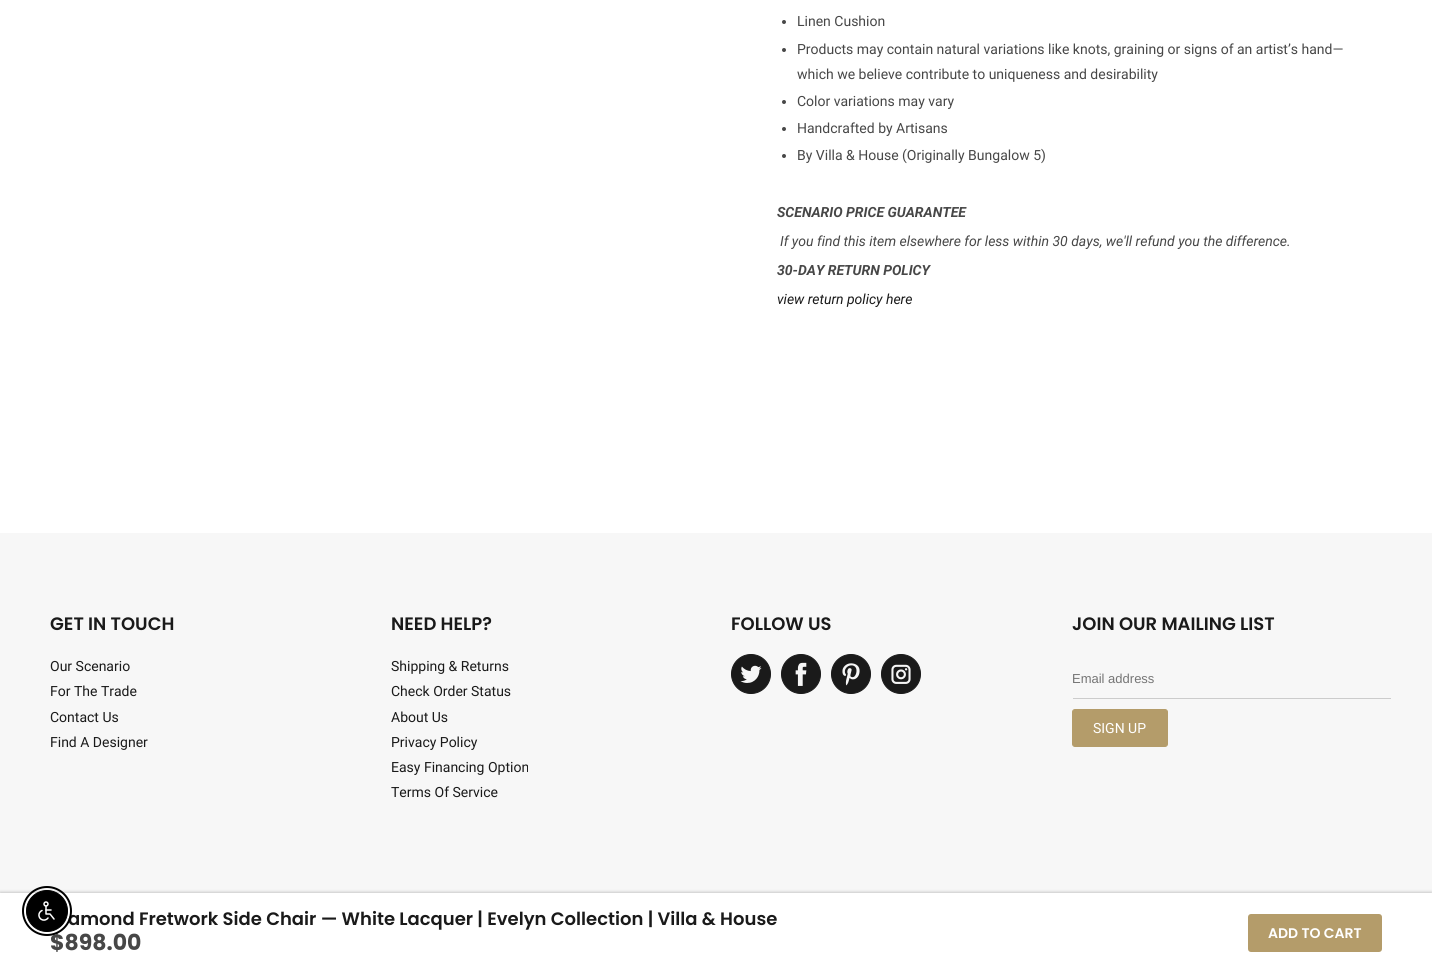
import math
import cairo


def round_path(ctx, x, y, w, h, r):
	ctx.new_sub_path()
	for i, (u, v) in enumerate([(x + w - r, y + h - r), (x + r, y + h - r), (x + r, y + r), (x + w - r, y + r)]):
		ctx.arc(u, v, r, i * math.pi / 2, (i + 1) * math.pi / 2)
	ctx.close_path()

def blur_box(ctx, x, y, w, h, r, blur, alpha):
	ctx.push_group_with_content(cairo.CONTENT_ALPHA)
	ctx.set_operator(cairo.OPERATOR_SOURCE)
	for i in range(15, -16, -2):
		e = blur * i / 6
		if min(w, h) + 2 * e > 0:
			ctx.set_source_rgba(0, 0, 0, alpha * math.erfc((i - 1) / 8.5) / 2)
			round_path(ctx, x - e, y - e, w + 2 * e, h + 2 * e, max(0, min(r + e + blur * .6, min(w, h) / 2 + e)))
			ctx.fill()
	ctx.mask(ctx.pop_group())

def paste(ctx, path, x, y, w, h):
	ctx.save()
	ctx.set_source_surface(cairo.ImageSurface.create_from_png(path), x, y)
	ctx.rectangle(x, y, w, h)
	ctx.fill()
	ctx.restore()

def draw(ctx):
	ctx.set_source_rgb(1, 1, 1)
	ctx.paint()
	ctx.set_source_rgb(0.278, 0.278, 0.278)
	ctx.arc(784, 22, 2, 0, 2 * math.pi)
	ctx.fill()
	ctx.select_font_face('Roboto')
	ctx.set_font_size(14)
	ctx.move_to(797, 26)
	ctx.show_text('Linen Cushion')
	ctx.new_path()
	ctx.arc(784, 50, 2, 0, 2 * math.pi)
	ctx.fill()
	ctx.move_to(797, 54)
	ctx.show_text('Products may contain natural variations like knots, graining or signs of an artist’s hand—')
	ctx.move_to(797, 79)
	ctx.show_text('which we believe contribute to uniqueness and desirability')
	ctx.new_path()
	ctx.arc(784, 102, 2, 0, 2 * math.pi)
	ctx.fill()
	ctx.move_to(797, 106)
	ctx.show_text('Color variations may vary')
	ctx.new_path()
	ctx.arc(784, 129, 2, 0, 2 * math.pi)
	ctx.fill()
	ctx.move_to(797, 133)
	ctx.show_text('Handcrafted by Artisans')
	ctx.new_path()
	ctx.arc(784, 156, 2, 0, 2 * math.pi)
	ctx.fill()
	ctx.move_to(797, 160)
	ctx.show_text('By Villa & House (Originally Bungalow 5)')
	ctx.select_font_face('Roboto', cairo.FONT_SLANT_ITALIC, cairo.FONT_WEIGHT_BOLD)
	ctx.move_to(777, 217)
	ctx.show_text('SCENARIO PRICE GUARANTEE')
	ctx.select_font_face('Roboto', cairo.FONT_SLANT_ITALIC)
	ctx.move_to(780, 246)
	ctx.show_text('If you find this item elsewhere for less within 30 days, we\'ll refund you the difference.')
	ctx.select_font_face('Roboto', cairo.FONT_SLANT_ITALIC, cairo.FONT_WEIGHT_BOLD)
	ctx.move_to(777, 275)
	ctx.show_text('30-DAY RETURN POLICY')
	ctx.select_font_face('Roboto', cairo.FONT_SLANT_ITALIC)
	ctx.set_source_rgb(0.102, 0.102, 0.102)
	ctx.move_to(777, 304)
	ctx.show_text('view return policy here')
	ctx.set_source_rgb(0.965, 0.965, 0.965)
	ctx.rectangle(0, 533, 1432, 360)
	ctx.fill()
	ctx.set_source_rgb(0, 0, 0)
	blur_box(ctx, 0, 892, 1432, 75, 0, 1.5, 0.2)
	ctx.set_source_rgb(1, 1, 1)
	ctx.rectangle(0, 893, 1432, 75)
	ctx.fill()
	ctx.select_font_face('Poppins SemiBold')
	ctx.set_font_size(18)
	ctx.set_source_rgb(0.102, 0.102, 0.102)
	ctx.move_to(68, 925)
	ctx.show_text('amond Fretwork Side Chair — White Lacquer | Evelyn Collection | Villa & House')
	ctx.select_font_face('Poppins', cairo.FONT_SLANT_NORMAL, cairo.FONT_WEIGHT_BOLD)
	ctx.set_font_size(22)
	ctx.set_source_rgb(0.278, 0.278, 0.278)
	ctx.move_to(50, 950)
	ctx.show_text('$898.00')
	ctx.set_source_rgb(0.706, 0.612, 0.416)
	round_path(ctx, 1248, 914, 134, 38, 3)
	ctx.fill()
	ctx.select_font_face('Poppins SemiBold')
	ctx.set_font_size(14)
	ctx.set_source_rgb(1, 1, 1)
	ctx.move_to(1268, 938)
	ctx.show_text('ADD TO CART')
	ctx.set_font_size(18)
	ctx.set_source_rgb(0.102, 0.102, 0.102)
	ctx.move_to(50, 630)
	ctx.show_text('GET IN TOUCH')
	ctx.select_font_face('Roboto')
	ctx.set_font_size(14)
	for x, y, s in [
		(50, 671, 'Our Scenario'),
		(50, 696, 'For The Trade'),
		(50, 722, 'Contact Us'),
		(50, 747, 'Find A Designer'),
	]:
		ctx.move_to(x, y)
		ctx.show_text(s)
	ctx.select_font_face('Poppins SemiBold')
	ctx.set_font_size(18)
	ctx.move_to(391, 630)
	ctx.show_text('NEED HELP?')
	ctx.select_font_face('Roboto')
	ctx.set_font_size(14)
	for x, y, s in [
		(391, 671, 'Shipping & Returns'),
		(391, 696, 'Check Order Status'),
		(391, 722, 'About Us'),
		(391, 747, 'Privacy Policy'),
		(391, 772, 'Easy Financing Option'),
		(391, 797, 'Terms Of Service'),
	]:
		ctx.move_to(x, y)
		ctx.show_text(s)
	ctx.select_font_face('Poppins SemiBold')
	ctx.set_font_size(18)
	ctx.move_to(731, 630)
	ctx.show_text('FOLLOW US')
	ctx.new_path()
	ctx.arc(751, 674, 19.5, 0, 2 * math.pi)
	ctx.fill_preserve()
	ctx.set_line_width(1)
	ctx.stroke()
	paste(ctx, 'media/1.png', 740, 665, 22, 18)
	ctx.arc(801, 674, 19.5, 0, 2 * math.pi)
	ctx.fill_preserve()
	ctx.stroke()
	paste(ctx, 'media/2.png', 795, 662, 12, 24)
	ctx.arc(851, 674, 19.5, 0, 2 * math.pi)
	ctx.fill_preserve()
	ctx.stroke()
	paste(ctx, 'media/3.png', 842, 663, 18, 23)
	ctx.arc(901, 674, 19.5, 0, 2 * math.pi)
	ctx.fill_preserve()
	ctx.stroke()
	paste(ctx, 'media/4.png', 891, 664, 20, 20)
	ctx.move_to(1072, 630)
	ctx.show_text('JOIN OUR MAILING LIST')
	ctx.set_source_rgb(0.8, 0.8, 0.8)
	ctx.rectangle(1073, 698, 318, 1)
	ctx.fill()
	ctx.select_font_face('Liberation Sans')
	ctx.set_font_size(13)
	ctx.set_source_rgb(0.459, 0.459, 0.459)
	ctx.move_to(1072, 683)
	ctx.show_text('Email address')
	ctx.set_source_rgb(0.706, 0.612, 0.416)
	round_path(ctx, 1072.5, 709.5, 95, 37, 2.5)
	ctx.fill_preserve()
	ctx.stroke()
	ctx.select_font_face('Roboto')
	ctx.set_font_size(14)
	ctx.set_source_rgb(1, 1, 1)
	ctx.move_to(1093, 733)
	ctx.show_text('SIGN UP')
	ctx.new_path()
	ctx.arc(47, 911, 24, 0, 2 * math.pi)
	ctx.set_source_rgb(0, 0, 0)
	ctx.set_line_width(2)
	ctx.stroke()
	ctx.arc(47, 911, 20.5, 0, 2 * math.pi)
	ctx.fill_preserve()
	ctx.set_line_width(1)
	ctx.stroke()
	paste(ctx, 'media/5.png', 38, 901, 17, 20)


surface = cairo.ImageSurface(cairo.FORMAT_RGB24, 1432, 968)
ctx = cairo.Context(surface)
options = cairo.FontOptions()
options.set_hint_metrics(cairo.HINT_METRICS_OFF)
options.set_hint_style(cairo.HINT_STYLE_NONE)
ctx.set_font_options(options)
ctx.set_miter_limit(4)
draw(ctx)
surface.write_to_png('image.png')
